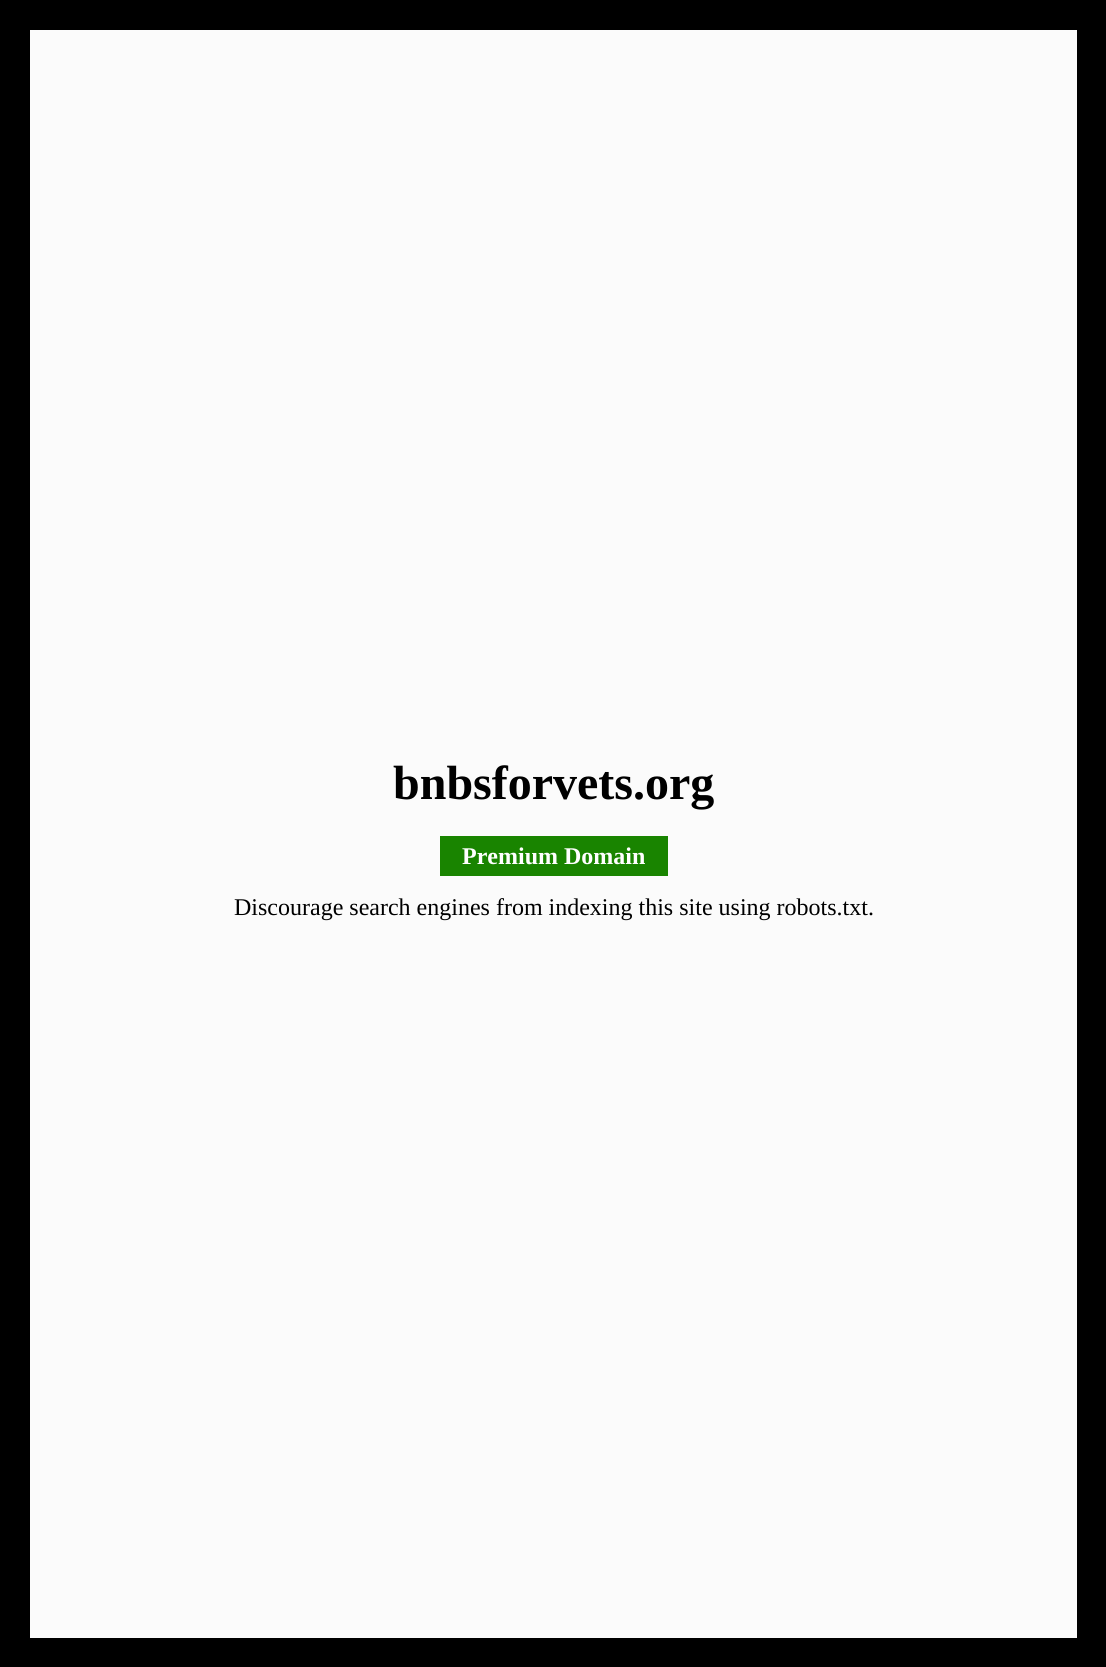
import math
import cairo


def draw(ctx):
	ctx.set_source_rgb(0, 0, 0)
	ctx.paint()
	ctx.set_source_rgb(0.984, 0.984, 0.984)
	ctx.rectangle(30, 30, 1047, 1608)
	ctx.fill()
	ctx.select_font_face('Liberation Serif', cairo.FONT_SLANT_NORMAL, cairo.FONT_WEIGHT_BOLD)
	ctx.set_font_size(48)
	ctx.set_source_rgb(0, 0, 0)
	ctx.move_to(393, 799)
	ctx.show_text('bnbsforvets.org')
	ctx.set_source_rgb(0.098, 0.518, 0)
	ctx.rectangle(440, 836, 228, 40)
	ctx.fill()
	ctx.set_font_size(24)
	ctx.set_source_rgb(1, 1, 1)
	ctx.move_to(462, 864)
	ctx.show_text('Premium Domain')
	ctx.select_font_face('Liberation Serif')
	ctx.set_source_rgb(0, 0, 0)
	ctx.move_to(234, 915)
	ctx.show_text('Discourage search engines from indexing this site using robots.txt.')


surface = cairo.ImageSurface(cairo.FORMAT_RGB24, 1106, 1667)
ctx = cairo.Context(surface)
options = cairo.FontOptions()
options.set_hint_metrics(cairo.HINT_METRICS_OFF)
options.set_hint_style(cairo.HINT_STYLE_NONE)
ctx.set_font_options(options)
ctx.set_miter_limit(4)
draw(ctx)
surface.write_to_png('image.png')
